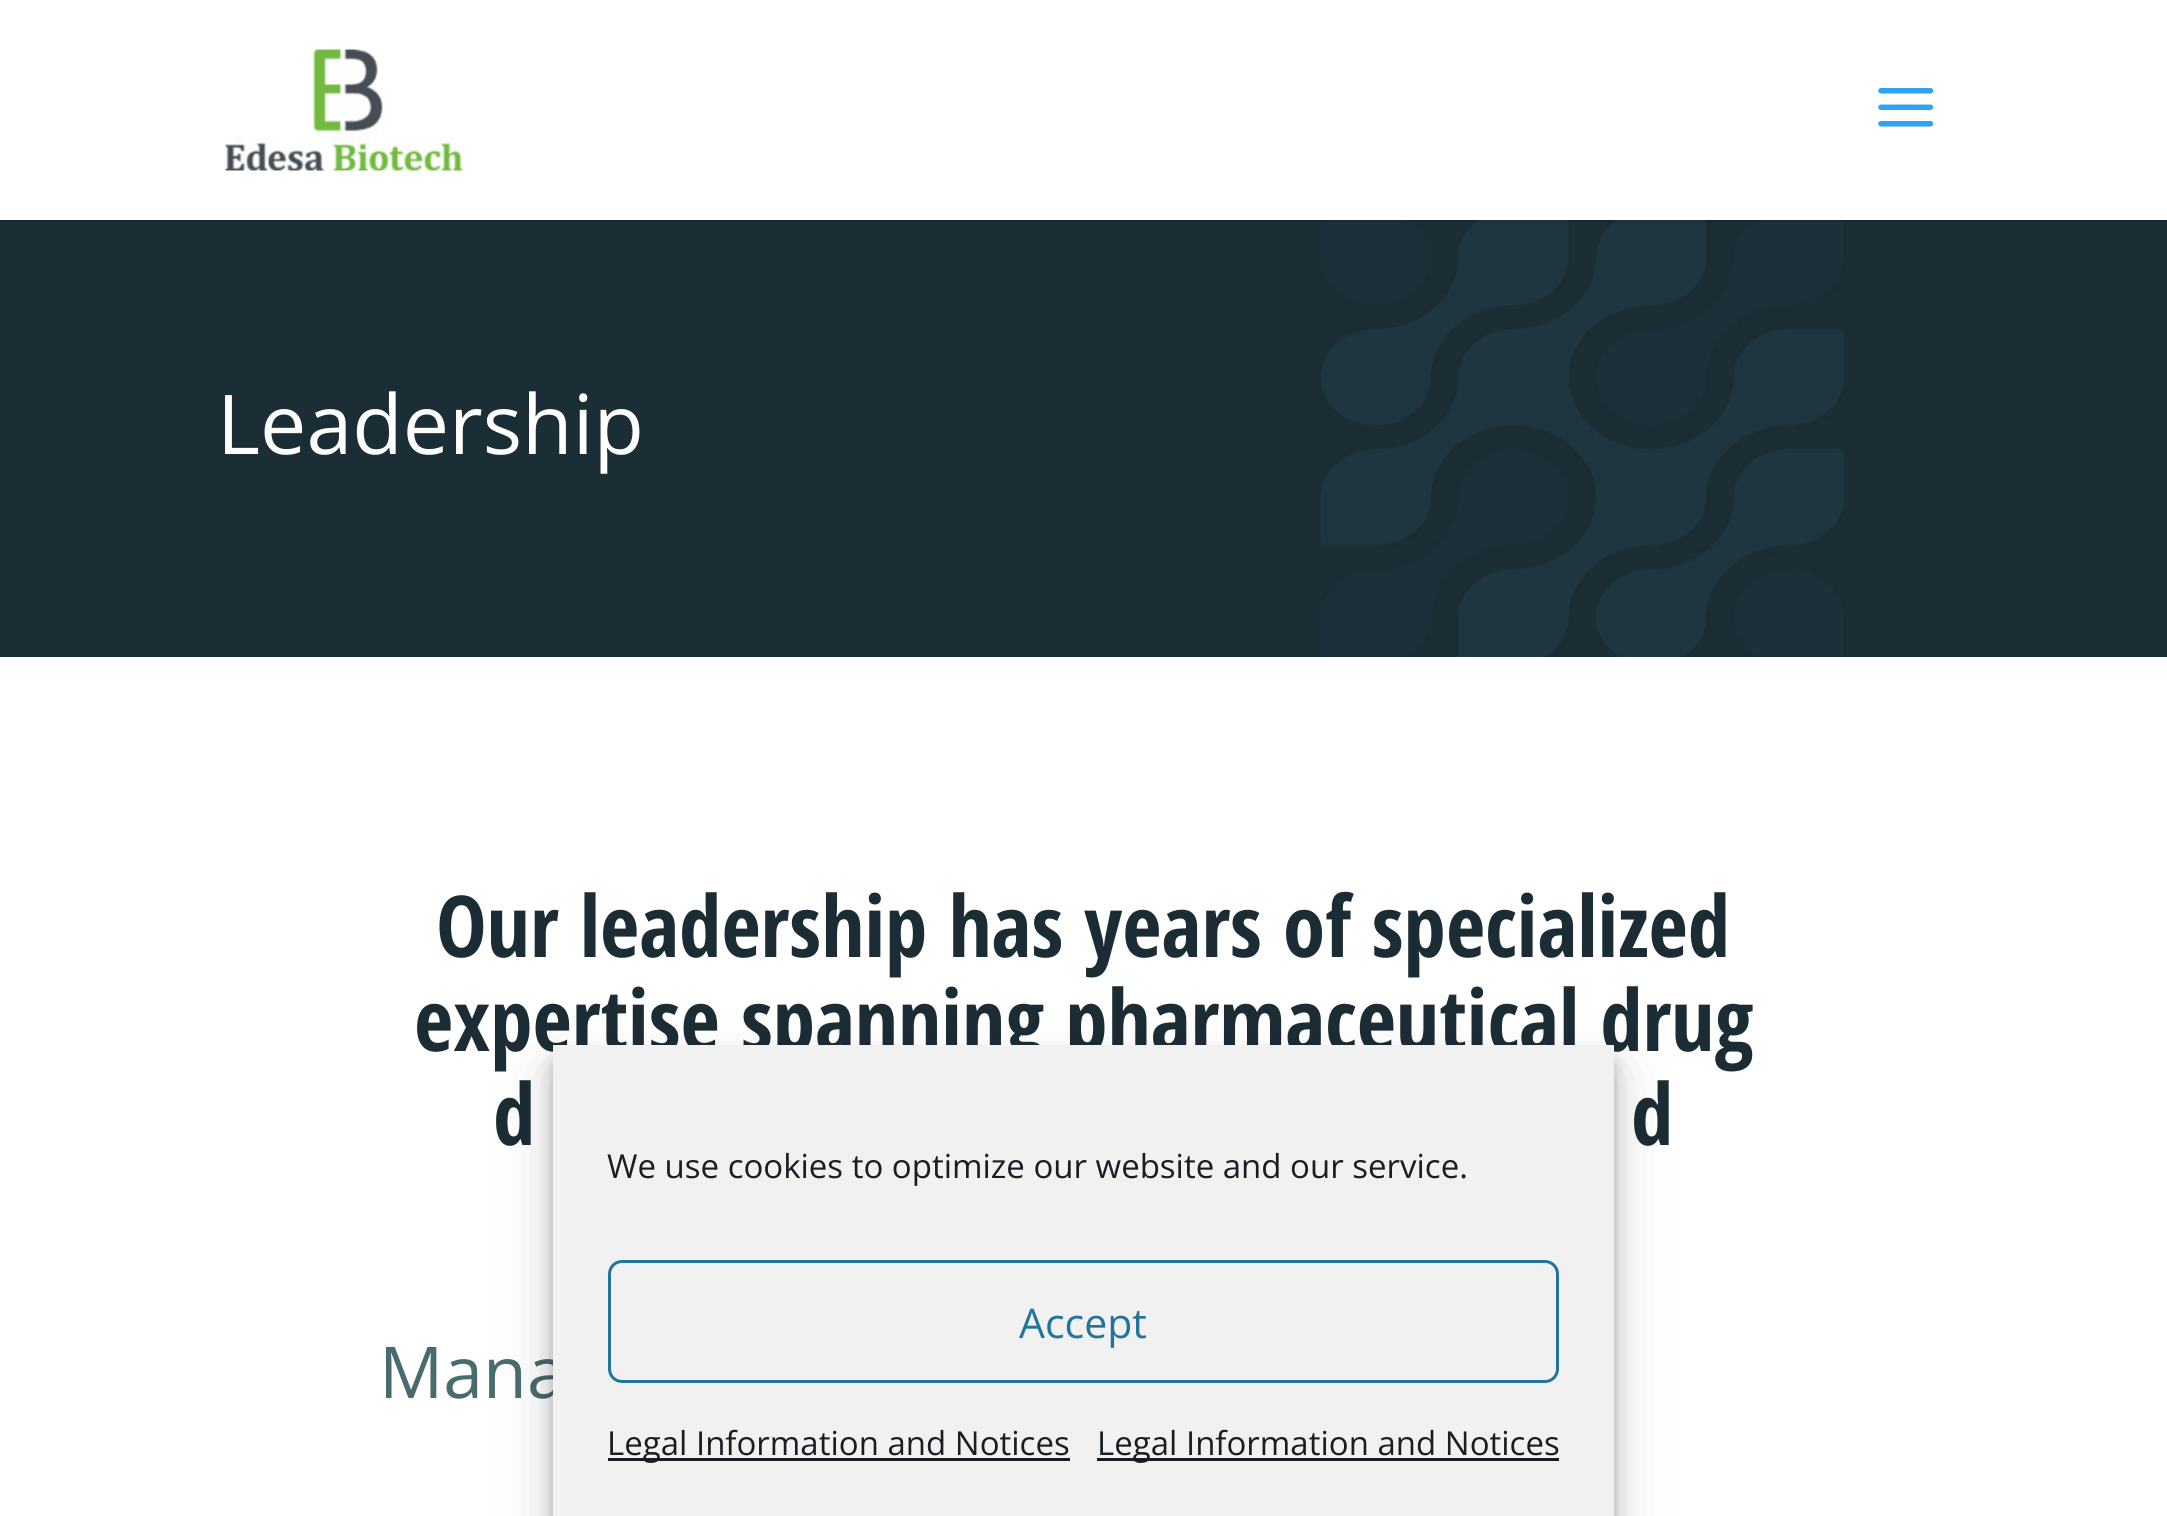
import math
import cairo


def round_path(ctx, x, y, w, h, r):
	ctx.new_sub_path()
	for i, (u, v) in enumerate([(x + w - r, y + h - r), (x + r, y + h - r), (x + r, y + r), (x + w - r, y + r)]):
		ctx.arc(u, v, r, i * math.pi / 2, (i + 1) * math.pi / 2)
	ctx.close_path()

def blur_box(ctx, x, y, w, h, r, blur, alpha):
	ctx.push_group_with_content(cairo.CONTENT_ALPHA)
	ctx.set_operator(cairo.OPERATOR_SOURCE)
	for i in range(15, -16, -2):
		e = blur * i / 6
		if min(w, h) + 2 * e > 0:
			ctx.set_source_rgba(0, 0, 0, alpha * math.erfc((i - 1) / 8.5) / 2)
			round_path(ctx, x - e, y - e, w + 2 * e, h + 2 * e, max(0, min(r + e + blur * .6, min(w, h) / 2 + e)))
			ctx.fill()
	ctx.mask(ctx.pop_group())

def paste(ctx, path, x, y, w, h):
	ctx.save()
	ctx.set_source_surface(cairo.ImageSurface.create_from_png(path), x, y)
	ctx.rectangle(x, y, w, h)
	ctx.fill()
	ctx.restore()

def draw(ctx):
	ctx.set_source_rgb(1, 1, 1)
	ctx.paint()
	paste(ctx, 'media/3.png', 0, 220, 2167, 437)
	ctx.set_source_rgba(0, 0, 0, 0.1)
	ctx.rectangle(0, 220, 2167, 3)
	ctx.fill()
	paste(ctx, 'media/1.png', 225, 49, 238, 122)
	paste(ctx, 'media/2.png', 1878, 88, 56, 39)
	ctx.select_font_face('Open Sans')
	ctx.set_font_size(82.5)
	ctx.set_source_rgb(1, 1, 1)
	ctx.move_to(217, 454)
	ctx.show_text('Leadership')
	ctx.select_font_face('Open Sans Condensed', cairo.FONT_SLANT_NORMAL, cairo.FONT_WEIGHT_BOLD)
	ctx.set_font_size(85.25)
	ctx.set_source_rgb(0.11, 0.173, 0.204)
	for x, y, s in [
		(436, 957, 'Our leadership has years of specialized'),
		(414, 1051, 'expertise spanning pharmaceutical drug'),
		(493, 1145, 'd'),
		(1631, 1145, 'd'),
	]:
		ctx.move_to(x, y)
		ctx.show_text(s)
	ctx.select_font_face('Open Sans')
	ctx.set_font_size(71.5)
	ctx.set_source_rgb(0.29, 0.42, 0.431)
	ctx.move_to(379, 1398)
	ctx.show_text('Mana')
	ctx.set_source_rgb(0, 0, 0)
	blur_box(ctx, 553, 1062, 1061, 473, 0, 8, 0.23)
	blur_box(ctx, 553, 1073, 1061, 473, 0, 27.5, 0.19)
	ctx.set_source_rgb(0.945, 0.945, 0.945)
	ctx.rectangle(553, 1045, 1061, 471)
	ctx.fill()
	ctx.set_font_size(33)
	ctx.set_source_rgb(0.098, 0.118, 0.137)
	ctx.move_to(607, 1178)
	ctx.show_text('We use cookies to optimize our website and our service.')
	round_path(ctx, 609.5, 1261.5, 948, 120, 12.5)
	ctx.set_source_rgb(0.129, 0.459, 0.608)
	ctx.set_line_width(3)
	ctx.stroke()
	ctx.set_font_size(41)
	ctx.move_to(1019, 1338)
	ctx.show_text('Accept')
	ctx.set_source_rgb(0.098, 0.118, 0.137)
	ctx.rectangle(608, 1458, 462, 3)
	ctx.fill()
	ctx.set_font_size(33)
	ctx.move_to(607, 1455)
	ctx.show_text('Legal Information and Notices')
	ctx.rectangle(1097, 1458, 462, 3)
	ctx.fill()
	ctx.move_to(1097, 1455)
	ctx.show_text('Legal Information and Notices')


surface = cairo.ImageSurface(cairo.FORMAT_RGB24, 2167, 1516)
ctx = cairo.Context(surface)
options = cairo.FontOptions()
options.set_hint_metrics(cairo.HINT_METRICS_OFF)
options.set_hint_style(cairo.HINT_STYLE_NONE)
ctx.set_font_options(options)
ctx.set_miter_limit(4)
draw(ctx)
surface.write_to_png('image.png')
